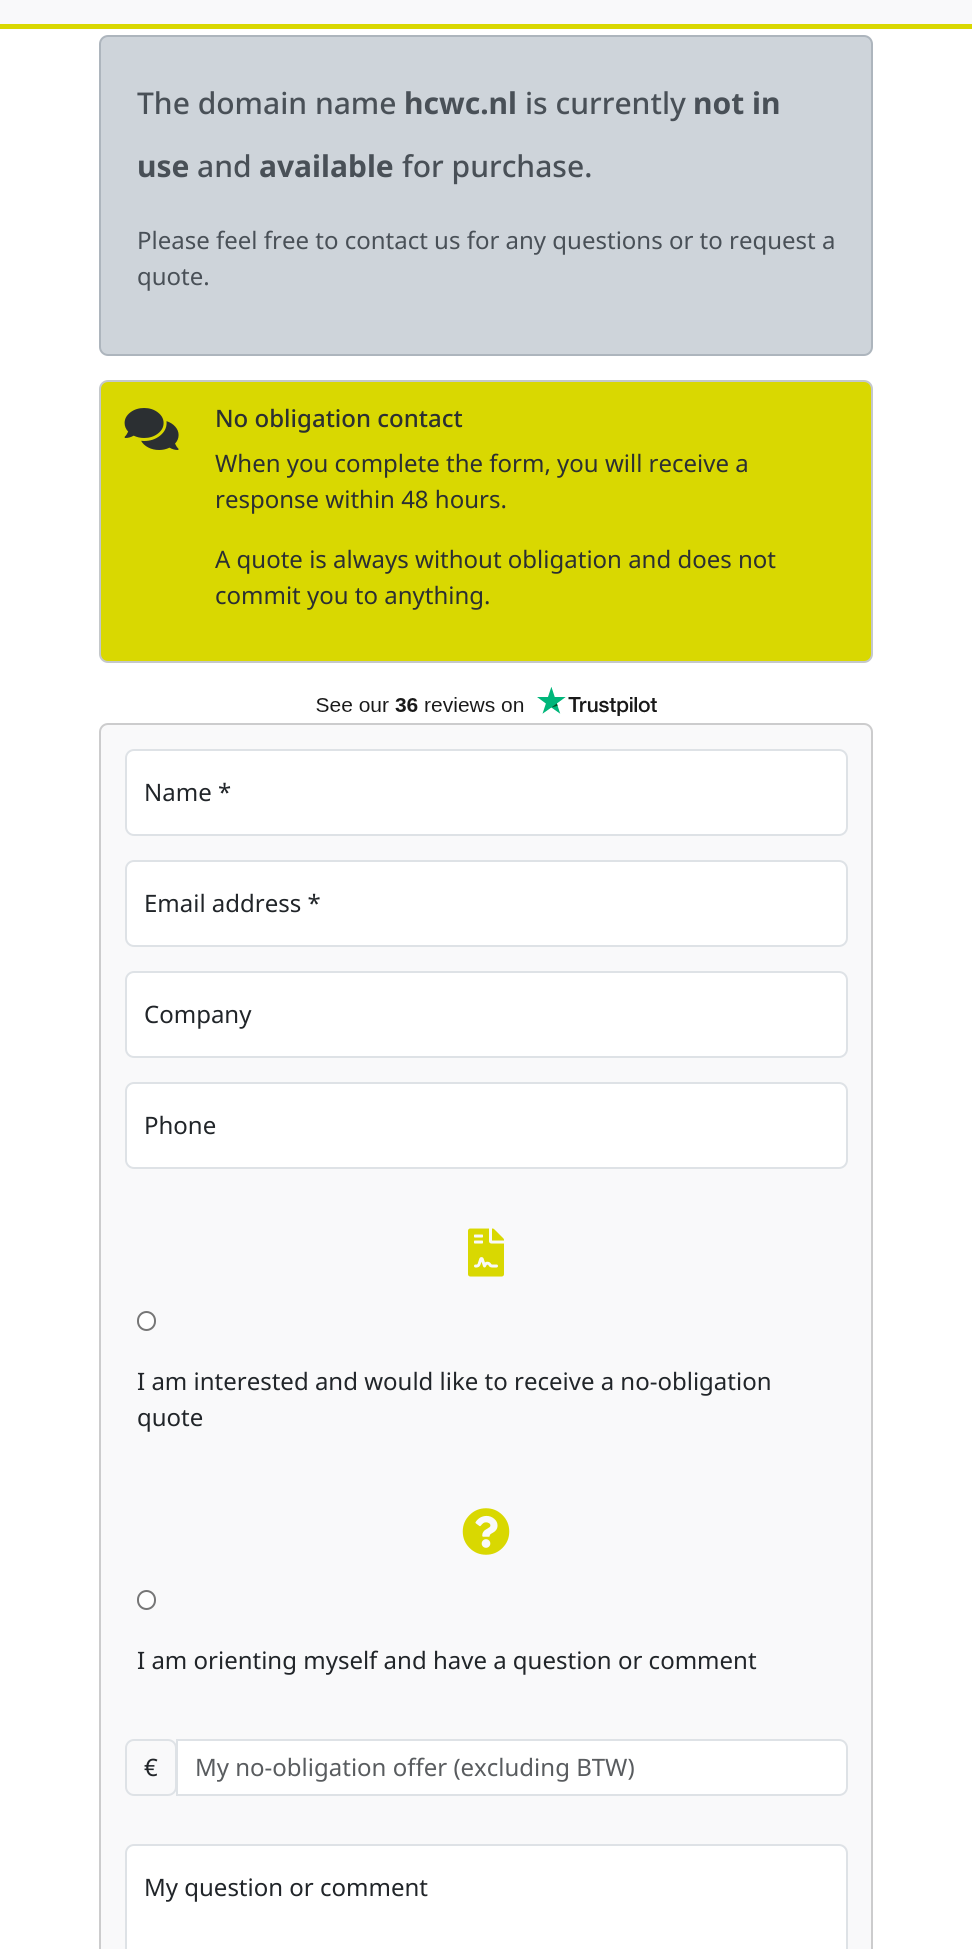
import math
import cairo


def round_path(ctx, x, y, w, h, r):
	ctx.new_sub_path()
	for i, (u, v) in enumerate([(x + w - r, y + h - r), (x + r, y + h - r), (x + r, y + r), (x + w - r, y + r)]):
		ctx.arc(u, v, r, i * math.pi / 2, (i + 1) * math.pi / 2)
	ctx.close_path()

def paste(ctx, path, x, y, w, h):
	ctx.save()
	ctx.set_source_surface(cairo.ImageSurface.create_from_png(path), x, y)
	ctx.rectangle(x, y, w, h)
	ctx.fill()
	ctx.restore()

def draw(ctx):
	ctx.set_source_rgb(1, 1, 1)
	ctx.paint()
	ctx.set_source_rgb(0.973, 0.976, 0.98)
	ctx.rectangle(0, 0, 972, 24)
	ctx.fill()
	ctx.set_source_rgb(0.851, 0.847, 0.004)
	ctx.rectangle(0, 24, 972, 5)
	ctx.fill()
	ctx.set_source_rgb(0.808, 0.831, 0.855)
	round_path(ctx, 100, 36, 772, 319, 8)
	ctx.fill_preserve()
	ctx.set_source_rgb(0.678, 0.71, 0.741)
	ctx.stroke()
	ctx.select_font_face('Noto Sans Medium')
	ctx.set_font_size(30)
	ctx.set_source_rgb(0.286, 0.314, 0.341)
	ctx.move_to(137, 114)
	ctx.show_text('The domain name')
	ctx.select_font_face('Noto Sans', cairo.FONT_SLANT_NORMAL, cairo.FONT_WEIGHT_BOLD)
	ctx.move_to(404, 114)
	ctx.show_text('hcwc.nl')
	ctx.select_font_face('Noto Sans Medium')
	ctx.move_to(525, 114)
	ctx.show_text('is currently')
	ctx.select_font_face('Noto Sans', cairo.FONT_SLANT_NORMAL, cairo.FONT_WEIGHT_BOLD)
	ctx.move_to(693, 114)
	ctx.show_text('not in')
	ctx.move_to(137, 177)
	ctx.show_text('use')
	ctx.select_font_face('Noto Sans Medium')
	ctx.move_to(197, 177)
	ctx.show_text('and')
	ctx.select_font_face('Noto Sans', cairo.FONT_SLANT_NORMAL, cairo.FONT_WEIGHT_BOLD)
	ctx.move_to(259, 177)
	ctx.show_text('available')
	ctx.select_font_face('Noto Sans Medium')
	ctx.move_to(402, 177)
	ctx.show_text('for purchase.')
	ctx.select_font_face('Noto Sans')
	ctx.set_font_size(24)
	ctx.move_to(137, 249)
	ctx.show_text('Please feel free to contact us for any questions or to request a')
	ctx.move_to(137, 285)
	ctx.show_text('quote.')
	ctx.set_source_rgb(0.851, 0.847, 0.004)
	round_path(ctx, 100, 381, 772, 281, 8)
	ctx.fill_preserve()
	ctx.set_source_rgb(0.769, 0.784, 0.796)
	ctx.stroke()
	paste(ctx, 'media/1.png', 124, 408, 55, 42)
	ctx.select_font_face('Noto Sans Medium')
	ctx.set_source_rgb(0.169, 0.184, 0.196)
	ctx.move_to(215, 427)
	ctx.show_text('No obligation contact')
	ctx.select_font_face('Noto Sans')
	for x, y, s in [
		(215, 472, 'When you complete the form, you will receive a'),
		(215, 508, 'response within 48 hours.'),
		(215, 568, 'A quote is always without obligation and does not'),
		(215, 604, 'commit you to anything.'),
	]:
		ctx.move_to(x, y)
		ctx.show_text(s)
	paste(ctx, 'media/2.png', 316, 687, 341, 29)
	ctx.set_source_rgb(0.973, 0.976, 0.98)
	round_path(ctx, 99, 723, 774, 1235, 9)
	ctx.fill()
	round_path(ctx, 100, 724, 772, 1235, 8)
	ctx.set_source_rgba(0, 0, 0, 0.18)
	ctx.stroke()
	ctx.set_source_rgb(1, 1, 1)
	round_path(ctx, 126, 750, 721, 85, 8)
	ctx.fill_preserve()
	ctx.set_source_rgb(0.871, 0.886, 0.902)
	ctx.stroke()
	ctx.set_source_rgb(0.129, 0.145, 0.161)
	ctx.move_to(144, 801)
	ctx.show_text('Name *')
	ctx.set_source_rgb(1, 1, 1)
	round_path(ctx, 126, 861, 721, 85, 8)
	ctx.fill_preserve()
	ctx.set_source_rgb(0.871, 0.886, 0.902)
	ctx.stroke()
	ctx.set_source_rgb(0.129, 0.145, 0.161)
	ctx.move_to(144, 912)
	ctx.show_text('Email address *')
	ctx.set_source_rgb(1, 1, 1)
	round_path(ctx, 126, 972, 721, 85, 8)
	ctx.fill_preserve()
	ctx.set_source_rgb(0.871, 0.886, 0.902)
	ctx.stroke()
	ctx.set_source_rgb(0.129, 0.145, 0.161)
	ctx.move_to(144, 1023)
	ctx.show_text('Company')
	ctx.set_source_rgb(1, 1, 1)
	round_path(ctx, 126, 1083, 721, 85, 8)
	ctx.fill_preserve()
	ctx.set_source_rgb(0.871, 0.886, 0.902)
	ctx.stroke()
	ctx.set_source_rgb(0.129, 0.145, 0.161)
	ctx.move_to(144, 1134)
	ctx.show_text('Phone')
	paste(ctx, 'media/3.png', 468, 1228, 36, 49)
	ctx.set_source_rgb(1, 1, 1)
	round_path(ctx, 138, 1312, 17, 18, 8.5)
	ctx.fill_preserve()
	ctx.set_source_rgb(0.463, 0.463, 0.463)
	ctx.stroke()
	ctx.set_source_rgb(0.129, 0.145, 0.161)
	ctx.move_to(137, 1390)
	ctx.show_text('I am interested and would like to receive a no-obligation')
	ctx.move_to(137, 1426)
	ctx.show_text('quote')
	paste(ctx, 'media/4.png', 462, 1508, 48, 47)
	ctx.set_source_rgb(1, 1, 1)
	round_path(ctx, 138, 1591, 17, 18, 8.5)
	ctx.fill_preserve()
	ctx.set_source_rgb(0.463, 0.463, 0.463)
	ctx.stroke()
	ctx.set_source_rgb(0.129, 0.145, 0.161)
	ctx.move_to(137, 1669)
	ctx.show_text('I am orienting myself and have a question or comment')
	round_path(ctx, 126, 1740, 50, 55, 8)
	ctx.set_source_rgb(0.871, 0.886, 0.902)
	ctx.stroke()
	ctx.set_source_rgb(0.129, 0.145, 0.161)
	ctx.move_to(144, 1776)
	ctx.show_text('€')
	ctx.set_source_rgb(1, 1, 1)
	ctx.new_path()
	ctx.move_to(177, 1740)
	ctx.line_to(839, 1740)
	ctx.curve_to(843.5, 1740, 847, 1743.5, 847, 1748)
	ctx.line_to(847, 1787)
	ctx.curve_to(847, 1791.5, 843.5, 1795, 839, 1795)
	ctx.line_to(177, 1795)
	ctx.close_path()
	ctx.fill_preserve()
	ctx.set_source_rgb(0.871, 0.886, 0.902)
	ctx.stroke()
	ctx.set_source_rgb(0.349, 0.361, 0.373)
	ctx.move_to(195, 1776)
	ctx.show_text('My no-obligation offer (excluding BTW)')
	ctx.set_source_rgb(1, 1, 1)
	round_path(ctx, 126, 1845, 720, 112, 8)
	ctx.fill()
	round_path(ctx, 126, 1845, 721, 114, 8)
	ctx.set_source_rgb(0.871, 0.886, 0.902)
	ctx.stroke()
	ctx.set_source_rgb(0.129, 0.145, 0.161)
	ctx.move_to(144, 1896)
	ctx.show_text('My question or comment')


surface = cairo.ImageSurface(cairo.FORMAT_RGB24, 972, 1949)
ctx = cairo.Context(surface)
options = cairo.FontOptions()
options.set_hint_metrics(cairo.HINT_METRICS_OFF)
options.set_hint_style(cairo.HINT_STYLE_NONE)
ctx.set_font_options(options)
ctx.set_miter_limit(4)
draw(ctx)
surface.write_to_png('image.png')
